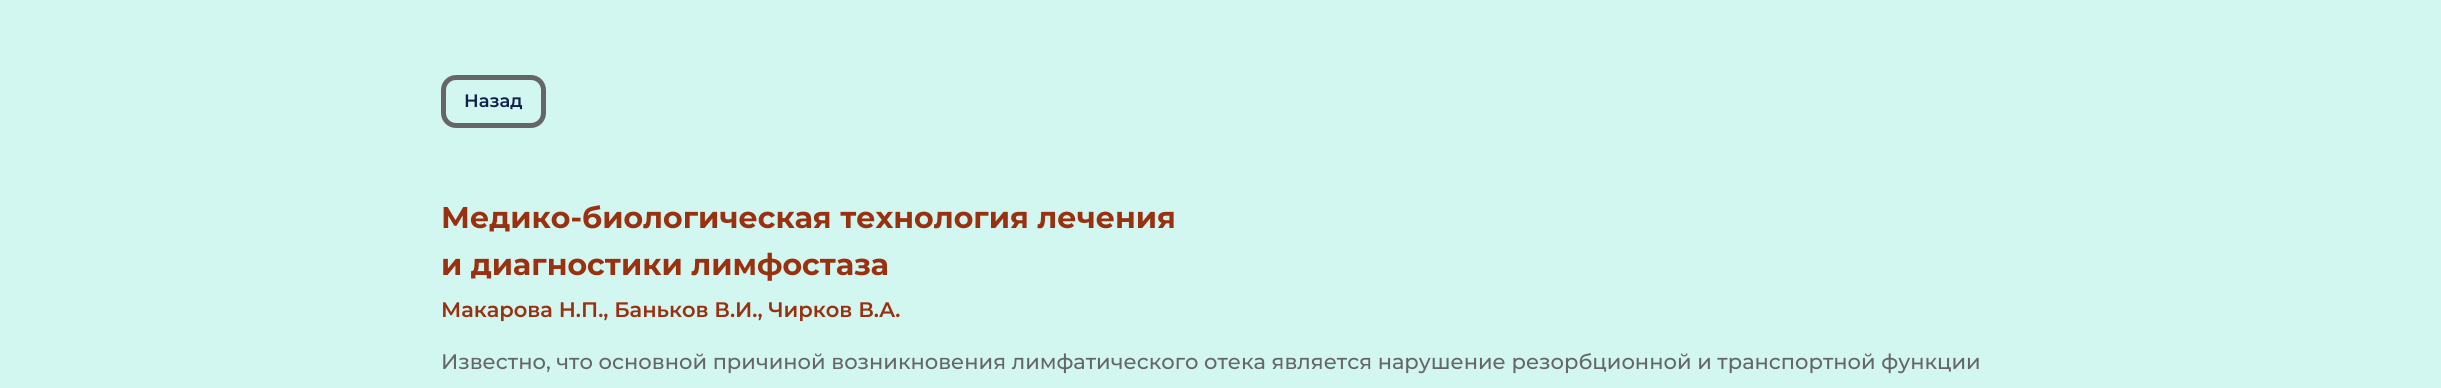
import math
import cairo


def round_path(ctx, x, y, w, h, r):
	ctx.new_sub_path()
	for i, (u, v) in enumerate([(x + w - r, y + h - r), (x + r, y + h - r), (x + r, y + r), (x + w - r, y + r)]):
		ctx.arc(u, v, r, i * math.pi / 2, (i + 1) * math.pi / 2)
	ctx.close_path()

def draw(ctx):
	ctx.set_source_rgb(0.824, 0.961, 0.941)
	ctx.paint()
	round_path(ctx, 443.5, 77.5, 100, 48, 12.5)
	ctx.set_source_rgb(0.4, 0.4, 0.4)
	ctx.set_line_width(5)
	ctx.stroke()
	ctx.select_font_face('Montserrat SemiBold')
	ctx.set_font_size(18)
	ctx.set_source_rgb(0.063, 0.125, 0.302)
	ctx.move_to(464, 107)
	ctx.show_text('Назад')
	ctx.select_font_face('Montserrat', cairo.FONT_SLANT_NORMAL, cairo.FONT_WEIGHT_BOLD)
	ctx.set_font_size(30)
	ctx.set_source_rgb(0.6, 0.192, 0.067)
	ctx.move_to(441, 228)
	ctx.show_text('Медико-биологическая технология лечения')
	ctx.move_to(441, 275)
	ctx.show_text('и диагностики лимфостаза')
	ctx.select_font_face('Montserrat SemiBold')
	ctx.set_font_size(21)
	ctx.move_to(441, 317)
	ctx.show_text('Макарова Н.П., Баньков В.И., Чирков В.А.')
	ctx.select_font_face('Montserrat Medium')
	ctx.set_source_rgb(0.4, 0.4, 0.4)
	ctx.move_to(441, 369)
	ctx.show_text('Известно, что основной причиной возникновения лимфатического отека является нарушение резорбционной и транспортной функции')


surface = cairo.ImageSurface(cairo.FORMAT_RGB24, 2441, 388)
ctx = cairo.Context(surface)
options = cairo.FontOptions()
options.set_hint_metrics(cairo.HINT_METRICS_OFF)
options.set_hint_style(cairo.HINT_STYLE_NONE)
ctx.set_font_options(options)
ctx.set_miter_limit(4)
draw(ctx)
surface.write_to_png('image.png')
